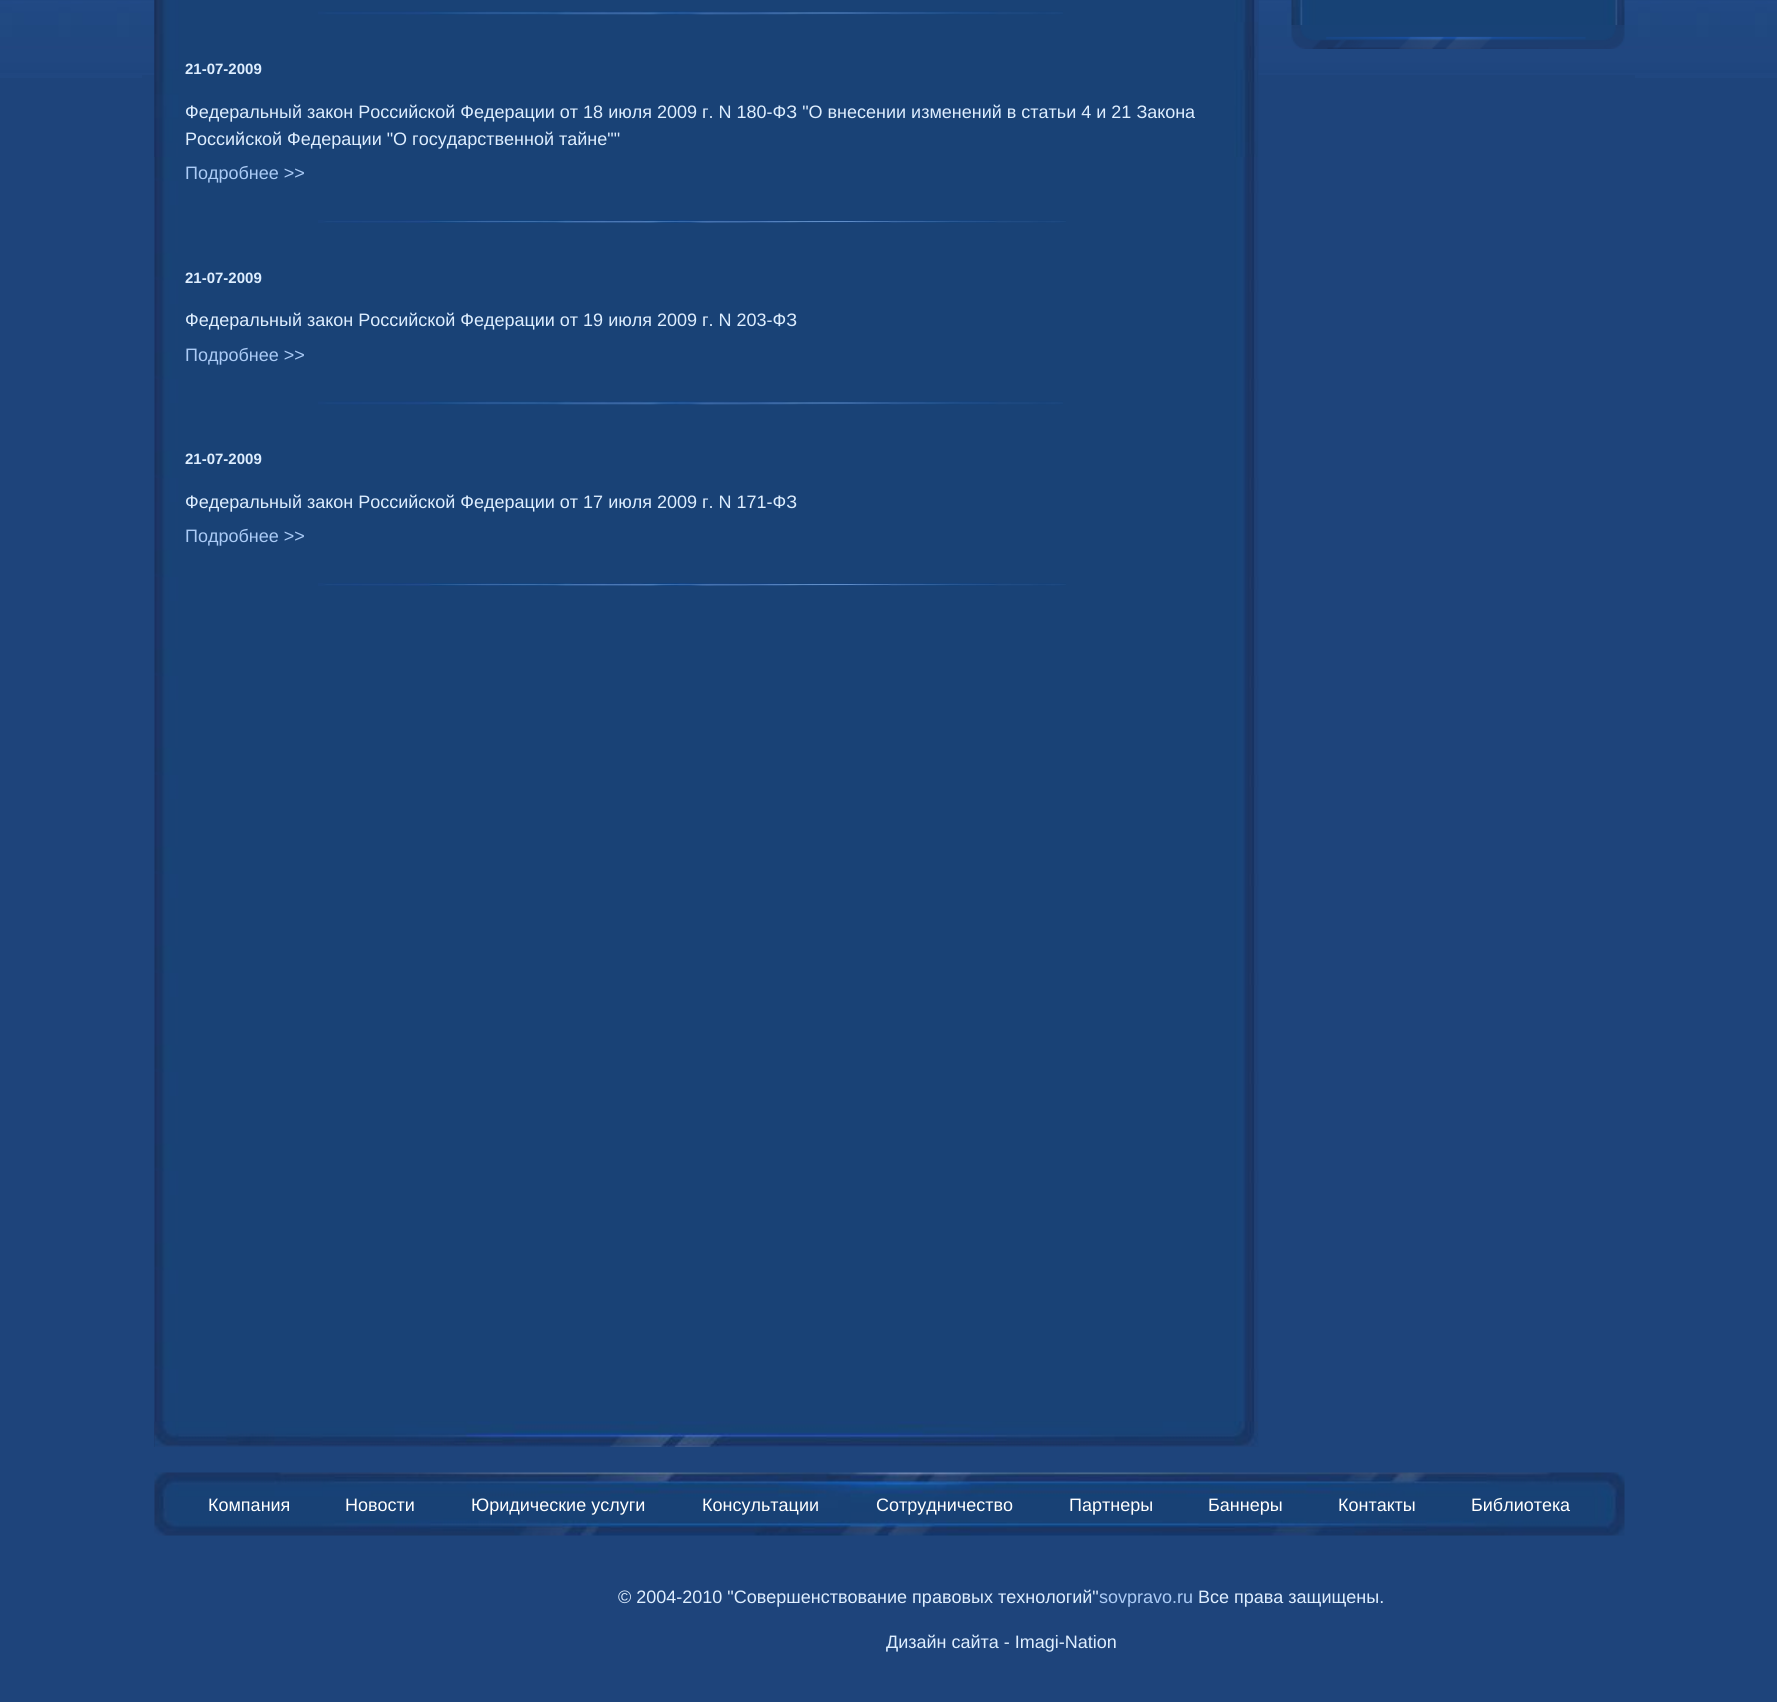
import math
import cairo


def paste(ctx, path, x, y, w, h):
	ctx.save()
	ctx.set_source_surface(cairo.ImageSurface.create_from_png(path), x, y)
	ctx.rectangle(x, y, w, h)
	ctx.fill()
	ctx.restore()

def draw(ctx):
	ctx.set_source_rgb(0.118, 0.267, 0.482)
	ctx.paint()
	paste(ctx, 'media/1.png', 0, 0, 1777, 75)
	ctx.set_source_rgb(0.125, 0.278, 0.502)
	ctx.rectangle(0, 75, 142, 3)
	ctx.fill()
	paste(ctx, 'media/2.png', 1291, 0, 334, 25)
	paste(ctx, 'media/3.png', 1291, 25, 334, 24)
	paste(ctx, 'media/4.png', 154, 0, 1105, 1447)
	paste(ctx, 'media/5.png', 154, 0, 1104, 157)
	paste(ctx, 'media/6.png', 318, 11, 745, 4)
	ctx.select_font_face('Liberation Sans', cairo.FONT_SLANT_NORMAL, cairo.FONT_WEIGHT_BOLD)
	ctx.set_font_size(15)
	ctx.set_source_rgb(0.871, 0.933, 1)
	ctx.move_to(185, 74)
	ctx.show_text('21-07-2009')
	ctx.select_font_face('Liberation Sans')
	ctx.set_font_size(18)
	ctx.move_to(185, 118)
	ctx.show_text('Федеральный закон Российской Федерации от 18 июля 2009 г. N 180-ФЗ "О внесении изменений в статьи 4 и 21 Закона')
	ctx.move_to(185, 145)
	ctx.show_text('Российской Федерации "О государственной тайне""')
	ctx.set_source_rgb(0.671, 0.796, 0.961)
	ctx.move_to(185, 179)
	ctx.show_text('Подробнее >>')
	paste(ctx, 'media/7.png', 318, 220, 748, 3)
	ctx.select_font_face('Liberation Sans', cairo.FONT_SLANT_NORMAL, cairo.FONT_WEIGHT_BOLD)
	ctx.set_font_size(15)
	ctx.set_source_rgb(0.871, 0.933, 1)
	ctx.move_to(185, 283)
	ctx.show_text('21-07-2009')
	ctx.select_font_face('Liberation Sans')
	ctx.set_font_size(18)
	ctx.move_to(185, 326)
	ctx.show_text('Федеральный закон Российской Федерации от 19 июля 2009 г. N 203-ФЗ')
	ctx.set_source_rgb(0.671, 0.796, 0.961)
	ctx.move_to(185, 361)
	ctx.show_text('Подробнее >>')
	paste(ctx, 'media/6.png', 318, 401, 745, 4)
	ctx.select_font_face('Liberation Sans', cairo.FONT_SLANT_NORMAL, cairo.FONT_WEIGHT_BOLD)
	ctx.set_font_size(15)
	ctx.set_source_rgb(0.871, 0.933, 1)
	ctx.move_to(185, 464)
	ctx.show_text('21-07-2009')
	ctx.select_font_face('Liberation Sans')
	ctx.set_font_size(18)
	ctx.move_to(185, 508)
	ctx.show_text('Федеральный закон Российской Федерации от 17 июля 2009 г. N 171-ФЗ')
	ctx.set_source_rgb(0.671, 0.796, 0.961)
	ctx.move_to(185, 542)
	ctx.show_text('Подробнее >>')
	paste(ctx, 'media/7.png', 318, 583, 748, 3)
	paste(ctx, 'media/8.png', 154, 1421, 1104, 26)
	ctx.set_source_rgb(0.125, 0.278, 0.502)
	ctx.rectangle(1635, 75, 142, 3)
	ctx.fill()
	paste(ctx, 'media/9.png', 154, 1472, 1471, 64)
	ctx.set_source_rgb(1, 1, 1)
	for x, y, s in [
		(208, 1511, 'Компания'),
		(345, 1511, 'Новости'),
		(471, 1511, 'Юридические услуги'),
		(702, 1511, 'Консультации'),
		(876, 1511, 'Сотрудничество'),
		(1069, 1511, 'Партнеры'),
		(1208, 1511, 'Баннеры'),
		(1338, 1511, 'Контакты'),
		(1471, 1511, 'Библиотека'),
	]:
		ctx.move_to(x, y)
		ctx.show_text(s)
	ctx.set_source_rgb(0.871, 0.933, 1)
	ctx.move_to(618, 1603)
	ctx.show_text('© 2004-2010 "Совершенствование правовых технологий"')
	ctx.set_source_rgb(0.671, 0.796, 0.961)
	ctx.move_to(1099, 1603)
	ctx.show_text('sovpravo.ru')
	ctx.set_source_rgb(0.871, 0.933, 1)
	ctx.move_to(1198, 1603)
	ctx.show_text('Все права защищены.')
	ctx.move_to(886, 1648)
	ctx.show_text('Дизайн сайта - Imagi-Nation')


surface = cairo.ImageSurface(cairo.FORMAT_RGB24, 1777, 1702)
ctx = cairo.Context(surface)
options = cairo.FontOptions()
options.set_hint_metrics(cairo.HINT_METRICS_OFF)
options.set_hint_style(cairo.HINT_STYLE_NONE)
ctx.set_font_options(options)
ctx.set_miter_limit(4)
draw(ctx)
surface.write_to_png('image.png')
